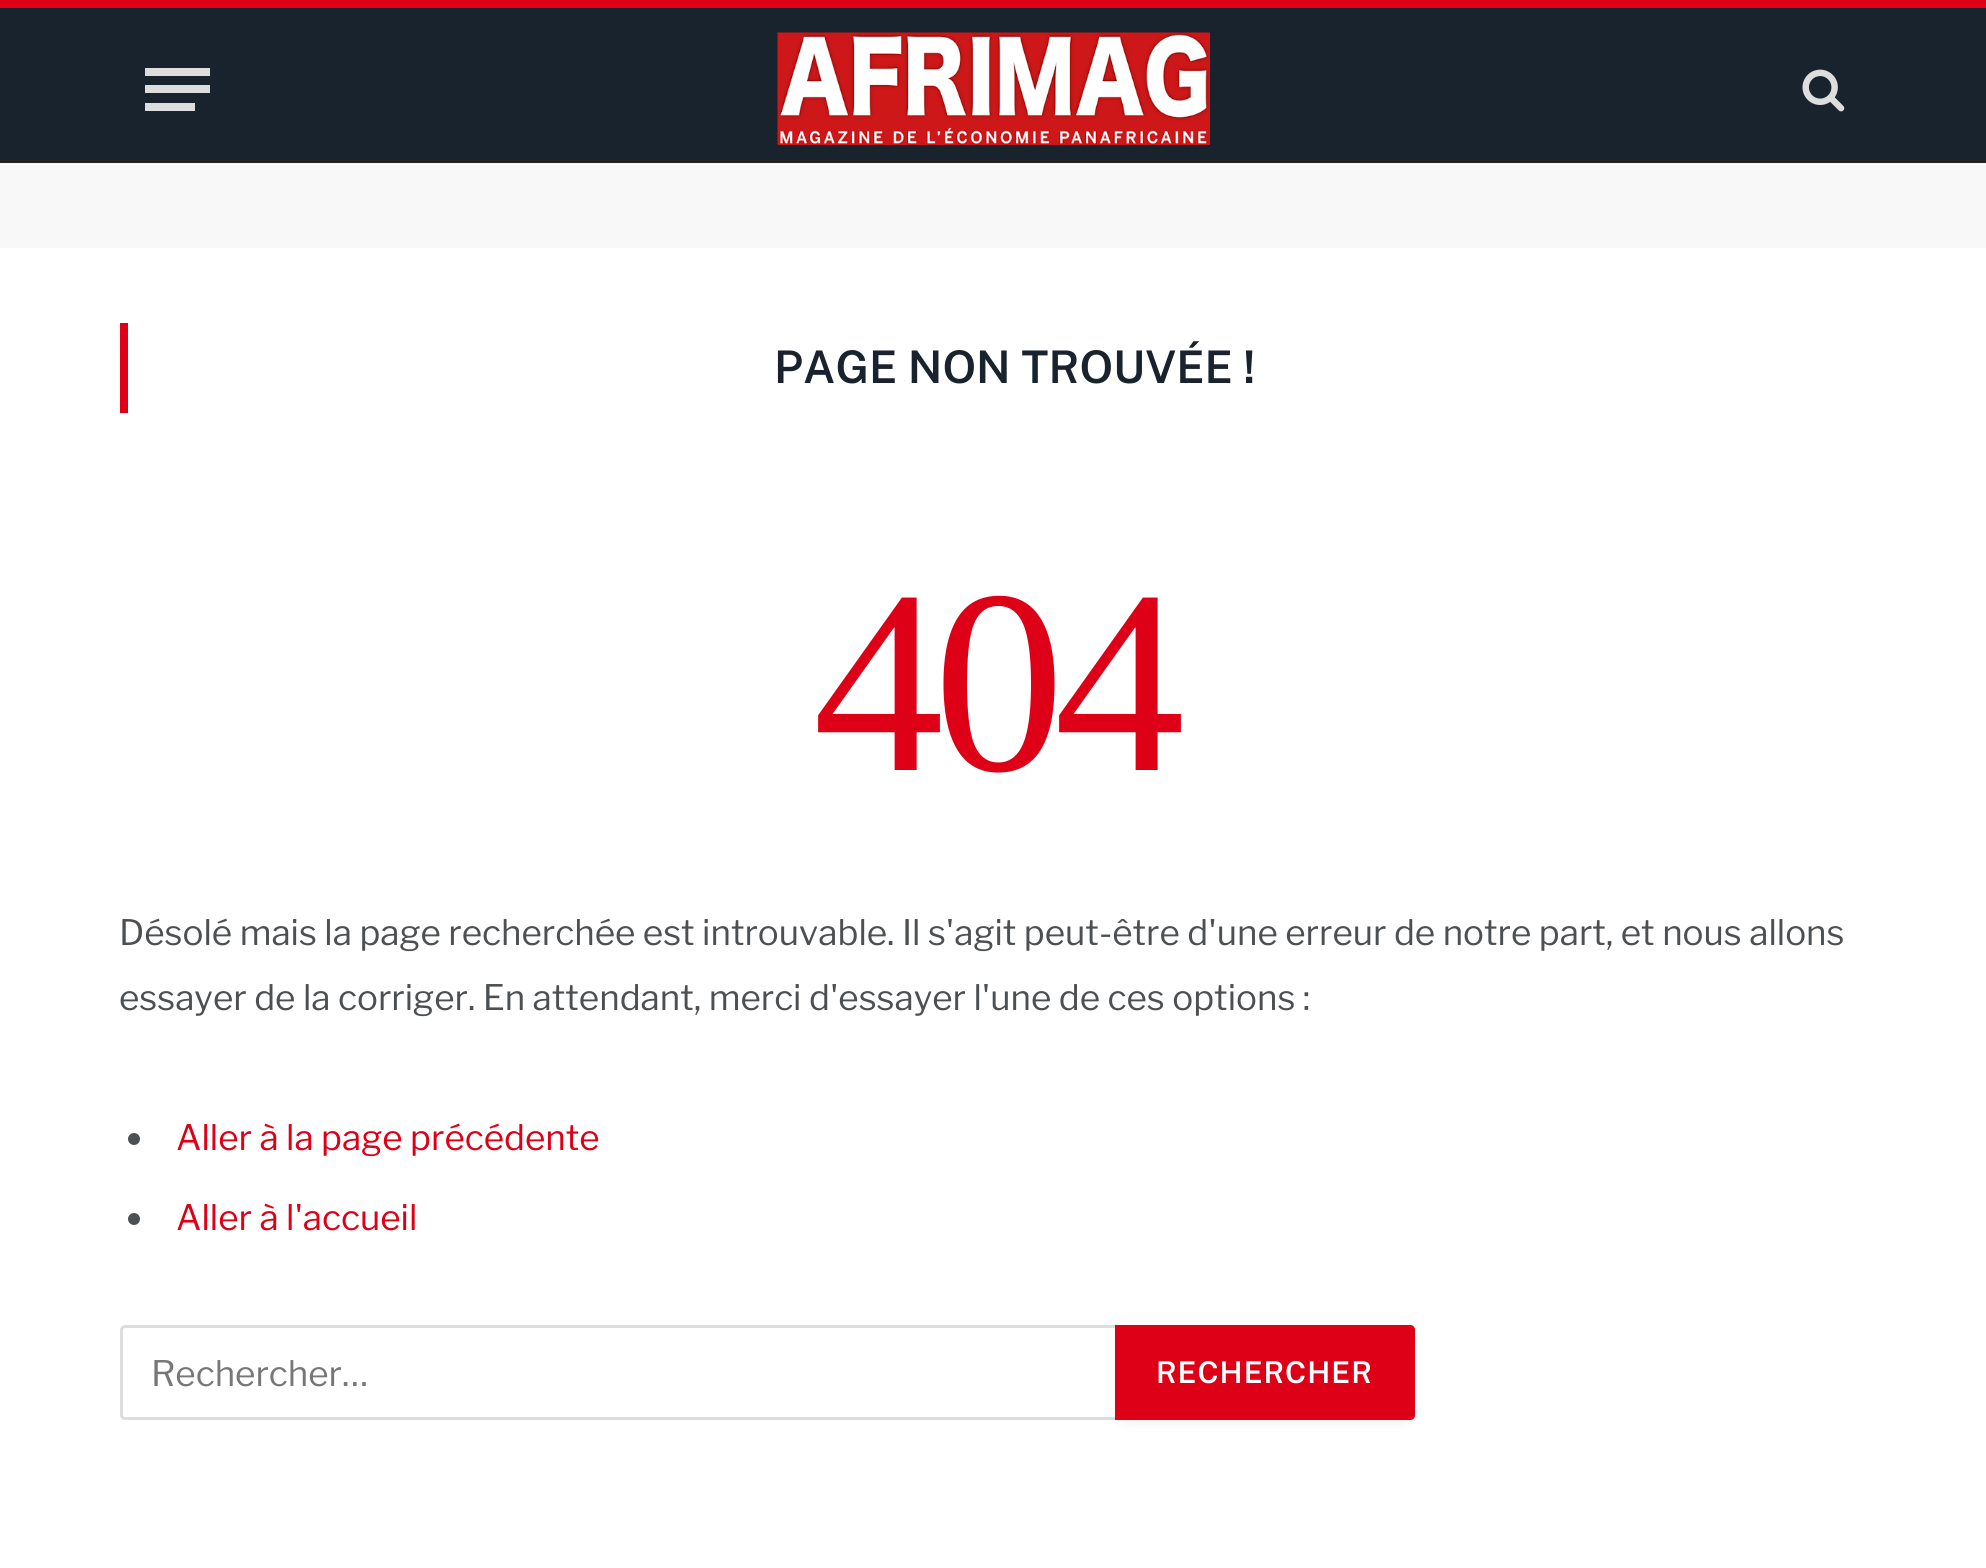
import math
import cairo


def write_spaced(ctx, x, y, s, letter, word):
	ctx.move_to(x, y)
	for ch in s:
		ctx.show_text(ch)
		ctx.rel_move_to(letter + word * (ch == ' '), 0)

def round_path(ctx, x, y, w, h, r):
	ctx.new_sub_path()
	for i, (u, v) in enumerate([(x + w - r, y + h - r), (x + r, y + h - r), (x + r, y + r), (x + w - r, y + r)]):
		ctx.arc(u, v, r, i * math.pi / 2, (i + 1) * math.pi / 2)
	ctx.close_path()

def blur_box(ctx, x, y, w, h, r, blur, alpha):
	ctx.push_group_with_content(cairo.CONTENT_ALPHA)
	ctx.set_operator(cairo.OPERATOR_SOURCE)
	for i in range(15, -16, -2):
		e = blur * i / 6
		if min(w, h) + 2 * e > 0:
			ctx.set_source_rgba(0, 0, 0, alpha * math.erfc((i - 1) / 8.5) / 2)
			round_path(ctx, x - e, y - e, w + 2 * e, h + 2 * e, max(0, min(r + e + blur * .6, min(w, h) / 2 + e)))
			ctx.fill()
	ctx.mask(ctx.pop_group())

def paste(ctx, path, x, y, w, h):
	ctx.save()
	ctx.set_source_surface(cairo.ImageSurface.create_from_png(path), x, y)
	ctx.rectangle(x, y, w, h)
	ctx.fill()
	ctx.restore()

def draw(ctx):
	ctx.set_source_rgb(1, 1, 1)
	ctx.paint()
	ctx.set_source_rgb(0.098, 0.137, 0.176)
	ctx.rectangle(0, 8, 1986, 152)
	ctx.fill()
	ctx.set_source_rgb(0.867, 0, 0.09)
	ctx.rectangle(0, 0, 1986, 8)
	ctx.fill()
	ctx.set_source_rgb(0.133, 0.133, 0.133)
	ctx.rectangle(0, 160, 1986, 3)
	ctx.fill()
	ctx.set_source_rgb(0.867, 0.867, 0.867)
	ctx.rectangle(145, 103, 50, 8)
	ctx.rectangle(145, 68, 65, 8)
	ctx.rectangle(145, 85, 65, 8)
	ctx.fill()
	paste(ctx, 'media/1.png', 777, 32, 433, 113)
	paste(ctx, 'media/2.png', 1802, 69, 43, 43)
	ctx.set_source_rgb(0.969, 0.969, 0.969)
	ctx.rectangle(0, 163, 1986, 85)
	ctx.fill()
	ctx.set_source_rgb(0.867, 0, 0.09)
	ctx.rectangle(120, 323, 8, 90)
	ctx.fill()
	ctx.select_font_face('Public Sans SemiBold')
	ctx.set_font_size(45)
	ctx.set_source_rgb(0.098, 0.137, 0.176)
	ctx.move_to(774, 383)
	ctx.show_text('PAGE NON TROUVÉE !')
	ctx.select_font_face('Liberation Serif')
	ctx.set_font_size(262)
	ctx.set_source_rgb(0.867, 0, 0.09)
	write_spaced(ctx, 813, 770, '404', -10.5, 0)
	ctx.select_font_face('Libre Franklin')
	ctx.set_font_size(35)
	ctx.set_source_rgb(0.302, 0.314, 0.325)
	ctx.move_to(119, 945)
	ctx.show_text('Désolé mais la page recherchée est introuvable. Il s\'agit peut-être d\'une erreur de notre part, et nous allons')
	ctx.move_to(119, 1010)
	ctx.show_text('essayer de la corriger. En attendant, merci d\'essayer l\'une de ces options :')
	ctx.new_path()
	ctx.arc(134, 1139, 6, 0, 2 * math.pi)
	ctx.fill()
	ctx.set_source_rgb(0.867, 0, 0.09)
	ctx.move_to(176, 1150)
	ctx.show_text('Aller à la page précédente')
	ctx.set_source_rgb(0.302, 0.314, 0.325)
	ctx.new_path()
	ctx.arc(134, 1219, 6, 0, 2 * math.pi)
	ctx.fill()
	ctx.set_source_rgb(0.867, 0, 0.09)
	ctx.move_to(176, 1230)
	ctx.show_text('Aller à l\'accueil')
	round_path(ctx, 121.5, 1326.5, 997, 92, 3.5)
	ctx.set_source_rgb(0.867, 0.867, 0.867)
	ctx.set_line_width(3)
	ctx.stroke()
	ctx.set_source_rgb(0.467, 0.467, 0.467)
	ctx.move_to(151, 1386)
	ctx.show_text('Rechercher…')
	ctx.set_source_rgb(0, 0, 0)
	blur_box(ctx, 1125, 1340, 280, 75, 0, 9, 0.16)
	ctx.set_source_rgb(0.867, 0, 0.09)
	ctx.new_path()
	ctx.move_to(1115, 1325)
	ctx.line_to(1410, 1325)
	ctx.curve_to(1413, 1325, 1415, 1327, 1415, 1330)
	ctx.line_to(1415, 1415)
	ctx.curve_to(1415, 1418, 1413, 1420, 1410, 1420)
	ctx.line_to(1115, 1420)
	ctx.close_path()
	ctx.fill()
	ctx.select_font_face('Public Sans SemiBold')
	ctx.set_font_size(30)
	ctx.set_source_rgb(1, 1, 1)
	write_spaced(ctx, 1156, 1383, 'RECHERCHER', 1, 0)


surface = cairo.ImageSurface(cairo.FORMAT_RGB24, 1986, 1568)
ctx = cairo.Context(surface)
options = cairo.FontOptions()
options.set_hint_metrics(cairo.HINT_METRICS_OFF)
options.set_hint_style(cairo.HINT_STYLE_NONE)
ctx.set_font_options(options)
ctx.set_miter_limit(4)
draw(ctx)
surface.write_to_png('image.png')
